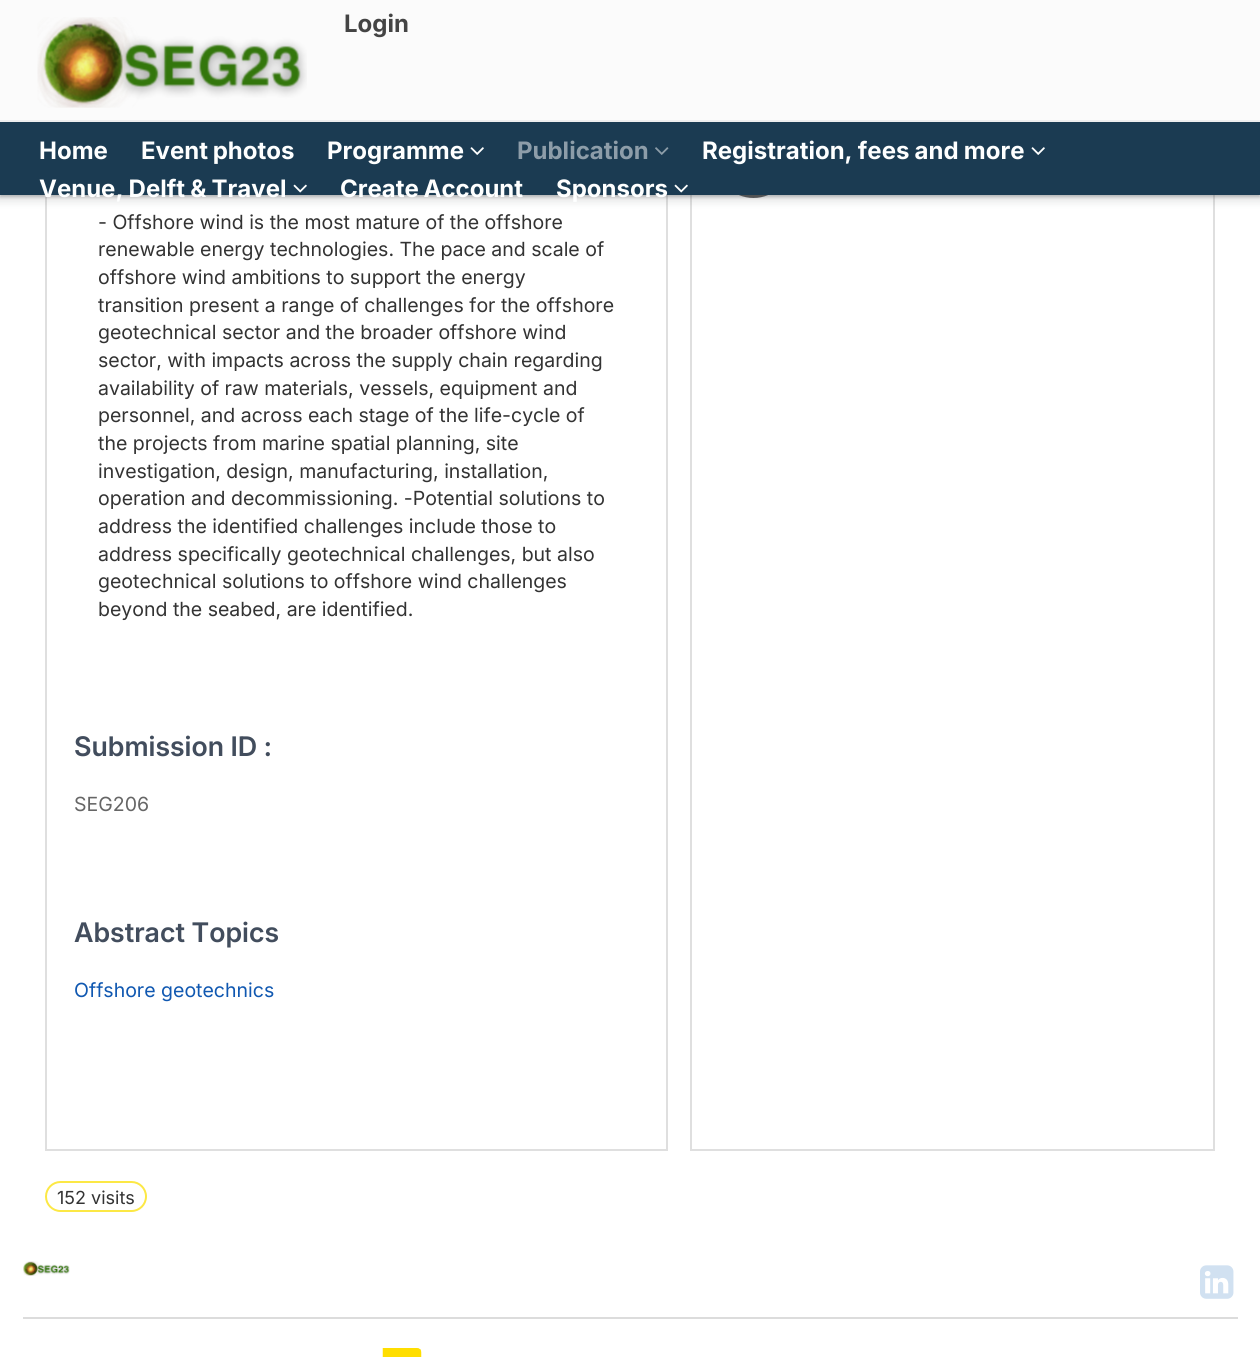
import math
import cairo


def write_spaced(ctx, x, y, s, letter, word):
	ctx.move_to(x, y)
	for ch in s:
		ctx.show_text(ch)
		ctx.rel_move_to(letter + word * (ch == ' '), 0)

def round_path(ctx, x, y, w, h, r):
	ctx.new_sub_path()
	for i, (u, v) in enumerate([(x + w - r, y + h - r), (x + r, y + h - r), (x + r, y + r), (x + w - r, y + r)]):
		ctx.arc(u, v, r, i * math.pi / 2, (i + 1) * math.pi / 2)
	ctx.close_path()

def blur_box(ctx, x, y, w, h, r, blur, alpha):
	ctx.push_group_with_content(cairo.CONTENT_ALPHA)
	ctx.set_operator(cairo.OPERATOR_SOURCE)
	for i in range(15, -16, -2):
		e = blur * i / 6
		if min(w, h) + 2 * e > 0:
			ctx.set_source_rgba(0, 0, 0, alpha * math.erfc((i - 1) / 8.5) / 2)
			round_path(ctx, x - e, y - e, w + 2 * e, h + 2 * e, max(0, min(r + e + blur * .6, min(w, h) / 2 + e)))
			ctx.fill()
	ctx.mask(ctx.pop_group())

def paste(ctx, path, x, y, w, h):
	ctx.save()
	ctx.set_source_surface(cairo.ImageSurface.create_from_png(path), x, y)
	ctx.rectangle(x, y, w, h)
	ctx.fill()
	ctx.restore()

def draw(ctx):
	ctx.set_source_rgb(1, 1, 1)
	ctx.paint()
	ctx.rectangle(46, 18, 621, 1132)
	ctx.set_source_rgb(0.875, 0.875, 0.875)
	ctx.stroke()
	ctx.rectangle(691, 18, 523, 1132)
	ctx.stroke()
	ctx.set_source_rgb(0.361, 0.361, 0.361)
	ctx.arc(753.5, 160.5, 37.5, 0, 2 * math.pi)
	ctx.fill()
	ctx.set_source_rgb(0.235, 0.251, 0.263)
	blur_box(ctx, -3, 0, 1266, 201, 0, 4.5, 0.15)
	blur_box(ctx, 0, 2, 1260, 195, 0, 1.5, 0.3)
	ctx.set_source_rgb(0.106, 0.231, 0.322)
	ctx.rectangle(0, 122, 1260, 73)
	ctx.fill()
	ctx.set_source_rgb(0.984, 0.984, 0.984)
	ctx.rectangle(0, 0, 1260, 120)
	ctx.fill()
	ctx.set_source_rgb(0.933, 0.933, 0.933)
	ctx.rectangle(0, 120, 1260, 2)
	ctx.fill()
	paste(ctx, 'media/1.png', 37, 17, 270, 91)
	ctx.select_font_face('Inter', cairo.FONT_SLANT_NORMAL, cairo.FONT_WEIGHT_BOLD)
	ctx.set_font_size(24)
	ctx.set_source_rgb(0.267, 0.267, 0.267)
	ctx.move_to(344, 32)
	ctx.show_text('Login')
	ctx.set_source_rgb(0.996, 1, 1)
	ctx.move_to(39, 159)
	ctx.show_text('Home')
	write_spaced(ctx, 141, 159, 'Event photos', 0, -1)
	ctx.move_to(327, 159)
	ctx.show_text('Programme')
	paste(ctx, 'media/2.png', 470, 147, 14, 8)
	ctx.set_source_rgb(0.553, 0.616, 0.663)
	ctx.move_to(517, 159)
	ctx.show_text('Publication')
	paste(ctx, 'media/3.png', 655, 147, 14, 8)
	ctx.set_source_rgb(0.996, 1, 1)
	write_spaced(ctx, 702, 159, 'Registration, fees and more', 0, -0.5)
	paste(ctx, 'media/2.png', 1031, 147, 14, 8)
	write_spaced(ctx, 39, 197, 'Venue, Delft & Travel', 0, -0.5)
	paste(ctx, 'media/4.png', 293, 184, 14, 9)
	write_spaced(ctx, 340, 197, 'Create Account', 0, -1)
	ctx.move_to(556, 197)
	ctx.show_text('Sponsors')
	paste(ctx, 'media/4.png', 674, 184, 14, 9)
	ctx.select_font_face('Inter')
	ctx.set_font_size(19.5)
	ctx.set_source_rgb(0.2, 0.2, 0.2)
	for x, y, s in [
		(98, 229, '- Offshore wind is the most mature of the offshore'),
		(98, 256, 'renewable energy technologies. The pace and scale of'),
		(98, 284, 'offshore wind ambitions to support the energy'),
		(98, 312, 'transition present a range of challenges for the offshore'),
		(98, 339, 'geotechnical sector and the broader offshore wind'),
		(98, 367, 'sector, with impacts across the supply chain regarding'),
		(98, 395, 'availability of raw materials, vessels, equipment and'),
		(98, 422, 'personnel, and across each stage of the life-cycle of'),
		(98, 450, 'the projects from marine spatial planning, site'),
		(98, 478, 'investigation, design, manufacturing, installation,'),
		(98, 505, 'operation and decommissioning. -Potential solutions to'),
		(98, 533, 'address the identified challenges include those to'),
		(98, 561, 'address specifically geotechnical challenges, but also'),
		(98, 588, 'geotechnical solutions to offshore wind challenges'),
		(98, 616, 'beyond the seabed, are identified.'),
	]:
		ctx.move_to(x, y)
		ctx.show_text(s)
	ctx.select_font_face('Inter SemiBold')
	ctx.set_font_size(27)
	ctx.set_source_rgb(0.259, 0.302, 0.365)
	ctx.move_to(74, 756)
	ctx.show_text('Submission ID :')
	ctx.select_font_face('Inter')
	ctx.set_font_size(19.5)
	ctx.set_source_rgb(0.4, 0.4, 0.4)
	ctx.move_to(74, 811)
	ctx.show_text('SEG206')
	ctx.select_font_face('Inter SemiBold')
	ctx.set_font_size(27)
	ctx.set_source_rgb(0.259, 0.302, 0.365)
	ctx.move_to(74, 942)
	ctx.show_text('Abstract Topics')
	ctx.select_font_face('Inter')
	ctx.set_font_size(19.5)
	ctx.set_source_rgb(0.063, 0.345, 0.694)
	ctx.move_to(74, 997)
	ctx.show_text('Offshore geotechnics')
	round_path(ctx, 46, 1182, 100, 29, 14.5)
	ctx.set_source_rgb(0.988, 0.91, 0.271)
	ctx.stroke()
	ctx.set_font_size(18)
	ctx.set_source_rgb(0.2, 0.2, 0.2)
	ctx.move_to(57, 1204)
	ctx.show_text('152 visits')
	paste(ctx, 'media/5.png', 23, 1261, 47, 15)
	paste(ctx, 'media/6.png', 1200, 1265, 34, 34)
	ctx.set_source_rgb(0.863, 0.863, 0.863)
	ctx.rectangle(23, 1317, 1215, 2)
	ctx.fill()
	paste(ctx, 'media/7.png', 382, 1348, 40, 9)


surface = cairo.ImageSurface(cairo.FORMAT_RGB24, 1260, 1357)
ctx = cairo.Context(surface)
options = cairo.FontOptions()
options.set_hint_metrics(cairo.HINT_METRICS_OFF)
options.set_hint_style(cairo.HINT_STYLE_NONE)
ctx.set_font_options(options)
ctx.set_miter_limit(4)
draw(ctx)
surface.write_to_png('image.png')
